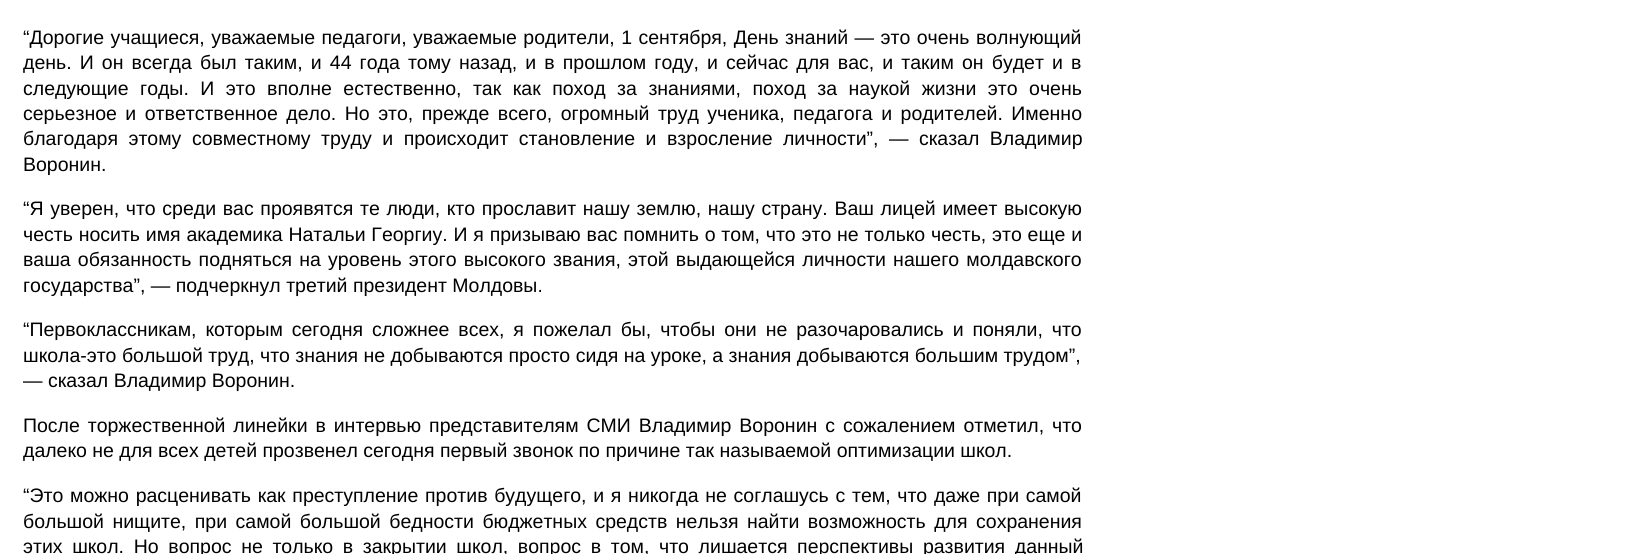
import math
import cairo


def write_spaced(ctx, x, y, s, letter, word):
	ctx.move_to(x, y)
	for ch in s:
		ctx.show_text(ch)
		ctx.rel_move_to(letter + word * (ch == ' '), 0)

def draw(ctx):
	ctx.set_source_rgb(1, 1, 1)
	ctx.paint()
	ctx.select_font_face('Liberation Sans')
	ctx.set_font_size(19.5)
	ctx.set_source_rgb(0, 0, 0)
	write_spaced(ctx, 23, 44, '“Дорогие учащиеся, уважаемые педагоги, уважаемые родители, 1 сентября, День знаний — это очень волнующий', 0, 1)
	write_spaced(ctx, 23, 69, 'день. И он всегда был таким, и 44 года тому назад, и в прошлом году, и сейчас для вас, и таким он будет и в', 0, 2.7)
	write_spaced(ctx, 23, 95, 'следующие годы. И это вполне естественно, так как поход за знаниями, поход за наукой жизни это очень', 0, 6.1)
	write_spaced(ctx, 23, 120, 'серьезное и ответственное дело. Но это, прежде всего, огромный труд ученика, педагога и родителей. Именно', 0, 3.1)
	write_spaced(ctx, 23, 145, 'благодаря этому совместному труду и происходит становление и взросление личности”, — сказал Владимир', 0, 5.1)
	ctx.move_to(23, 171)
	ctx.show_text('Воронин.')
	write_spaced(ctx, 23, 215, '“Я уверен, что среди вас проявятся те люди, кто прославит нашу землю, нашу страну. Ваш лицей имеет высокую', 0, 1.25)
	write_spaced(ctx, 23, 241, 'честь носить имя академика Натальи Георгиу. И я призываю вас помнить о том, что это не только честь, это еще и', 0, 0.4)
	write_spaced(ctx, 23, 266, 'ваша обязанность подняться на уровень этого высокого звания, этой выдающейся личности нашего молдавского', 0, 1.75)
	ctx.move_to(23, 292)
	ctx.show_text('государства”, — подчеркнул третий президент Молдовы.')
	write_spaced(ctx, 23, 336, '“Первоклассникам, которым сегодня сложнее всех, я пожелал бы, чтобы они не разочаровались и поняли, что', 0, 3.5)
	ctx.move_to(23, 362)
	ctx.show_text('школа-это большой труд, что знания не добываются просто сидя на уроке, а знания добываются большим трудом”,')
	ctx.move_to(23, 387)
	ctx.show_text('— сказал Владимир Воронин.')
	write_spaced(ctx, 23, 432, 'После торжественной линейки в интервью представителям СМИ Владимир Воронин с сожалением отметил, что', 0, 2.5)
	ctx.move_to(23, 457)
	ctx.show_text('далеко не для всех детей прозвенел сегодня первый звонок по причине так называемой оптимизации школ.')
	write_spaced(ctx, 23, 502, '“Это можно расценивать как преступление против будущего, и я никогда не соглашусь с тем, что даже при самой', 0, 1.3)
	write_spaced(ctx, 23, 528, 'большой нищите, при самой большой бедности бюджетных средств нельзя найти возможность для сохранения', 0, 3.1)
	write_spaced(ctx, 23, 553, 'этих школ. Но вопрос не только в закрытии школ, вопрос в том, что лишается перспективы развития данный', 0, 4.25)


surface = cairo.ImageSurface(cairo.FORMAT_RGB24, 1649, 554)
ctx = cairo.Context(surface)
options = cairo.FontOptions()
options.set_hint_metrics(cairo.HINT_METRICS_OFF)
options.set_hint_style(cairo.HINT_STYLE_NONE)
ctx.set_font_options(options)
ctx.set_miter_limit(4)
draw(ctx)
surface.write_to_png('image.png')
